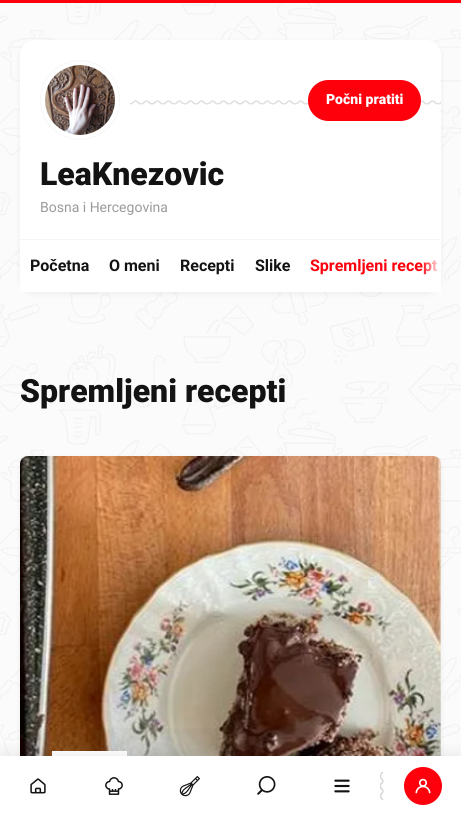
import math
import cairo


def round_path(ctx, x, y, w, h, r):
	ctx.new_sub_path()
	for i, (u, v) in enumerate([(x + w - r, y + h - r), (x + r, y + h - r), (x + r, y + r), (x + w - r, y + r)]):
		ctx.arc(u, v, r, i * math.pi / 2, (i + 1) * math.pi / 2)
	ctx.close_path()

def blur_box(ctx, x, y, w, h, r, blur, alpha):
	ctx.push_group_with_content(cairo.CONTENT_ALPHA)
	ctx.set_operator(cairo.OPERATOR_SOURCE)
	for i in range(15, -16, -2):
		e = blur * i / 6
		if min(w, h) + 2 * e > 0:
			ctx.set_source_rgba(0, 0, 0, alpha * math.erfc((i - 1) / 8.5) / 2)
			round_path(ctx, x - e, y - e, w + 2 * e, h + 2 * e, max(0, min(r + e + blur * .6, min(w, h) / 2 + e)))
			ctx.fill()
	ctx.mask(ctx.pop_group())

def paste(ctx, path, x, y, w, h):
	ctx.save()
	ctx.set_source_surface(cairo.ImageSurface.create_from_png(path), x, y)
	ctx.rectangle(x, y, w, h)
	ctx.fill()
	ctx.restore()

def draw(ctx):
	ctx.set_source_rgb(0.984, 0.984, 0.984)
	ctx.paint()
	paste(ctx, 'media/1.png', 0, 3, 461, 753)
	ctx.set_source_rgb(0.996, 0, 0.047)
	ctx.rectangle(0, 0, 461, 3)
	ctx.fill()
	ctx.set_source_rgb(0, 0, 0)
	blur_box(ctx, 20, 42, 421, 252, 15, 3, 0.06)
	ctx.set_source_rgb(1, 1, 1)
	round_path(ctx, 20, 40, 421, 252, 15)
	ctx.fill()
	paste(ctx, 'media/2.png', 130, 100, 311, 5)
	ctx.set_source_rgb(0.996, 0, 0.047)
	round_path(ctx, 309, 81, 111, 39, 19.5)
	ctx.fill_preserve()
	ctx.stroke()
	ctx.select_font_face('Roboto Black')
	ctx.set_font_size(14)
	ctx.set_source_rgb(1, 1, 1)
	ctx.move_to(326, 104)
	ctx.show_text('Počni pratiti')
	ctx.new_path()
	ctx.arc(80, 100, 39.5, 0, 2 * math.pi)
	ctx.set_source_rgb(0.961, 0.961, 0.961)
	ctx.set_line_width(1)
	ctx.stroke()
	paste(ctx, 'media/3.png', 45, 65, 70, 70)
	ctx.set_font_size(32)
	ctx.set_source_rgb(0.078, 0.075, 0.075)
	ctx.move_to(40, 185)
	ctx.show_text('LeaKnezovic')
	ctx.select_font_face('Roboto')
	ctx.set_font_size(14)
	ctx.set_source_rgb(0.608, 0.608, 0.608)
	ctx.move_to(40, 212)
	ctx.show_text('Bosna i Hercegovina')
	ctx.set_source_rgb(1, 1, 1)
	ctx.rectangle(20, 279, 421, 13)
	ctx.fill()
	ctx.set_source_rgb(0.961, 0.961, 0.961)
	ctx.rectangle(20, 239, 421, 1)
	ctx.fill()
	ctx.select_font_face('Roboto', cairo.FONT_SLANT_NORMAL, cairo.FONT_WEIGHT_BOLD)
	ctx.set_font_size(16)
	ctx.set_source_rgb(0.078, 0.075, 0.075)
	for x, y, s in [
		(30, 271, 'Početna'),
		(109, 271, 'O meni'),
		(180, 271, 'Recepti'),
		(255, 271, 'Slike'),
	]:
		ctx.move_to(x, y)
		ctx.show_text(s)
	ctx.set_source_rgb(0.996, 0, 0.047)
	ctx.move_to(310, 271)
	ctx.show_text('Spremljeni recept')
	gradient = cairo.LinearGradient(441, 266, 421, 266)
	gradient.add_color_stop_rgba(0, 1, 1, 1, 1)
	gradient.add_color_stop_rgba(1, 1, 1, 1, 0)
	ctx.set_source(gradient)
	ctx.rectangle(421, 260, 17, 15)
	ctx.fill()
	ctx.select_font_face('Roboto Black')
	ctx.set_font_size(32)
	ctx.set_source_rgb(0.078, 0.075, 0.075)
	ctx.move_to(20, 402)
	ctx.show_text('Spremljeni recepti')
	ctx.set_source_rgb(0, 0, 0)
	blur_box(ctx, 20, 458, 421, 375, 8, 3, 0.06)
	paste(ctx, 'media/4.png', 20, 456, 421, 300)
	gradient = cairo.LinearGradient(231, 719, 231, 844)
	gradient.add_color_stop_rgba(0, 0, 0, 0, 0)
	gradient.add_color_stop_rgba(1, 0, 0, 0, 0.3)
	ctx.set_source(gradient)
	ctx.rectangle(26, 728, 415, 28)
	ctx.fill()
	ctx.set_source_rgb(1, 1, 1)
	ctx.rectangle(52, 751, 75, 5)
	ctx.fill()
	ctx.set_source_rgb(0, 0, 0)
	blur_box(ctx, 0, 754, 461, 60, 0, 8, 0.08)
	ctx.set_source_rgb(1, 1, 1)
	ctx.rectangle(0, 756, 461, 60)
	ctx.fill()
	paste(ctx, 'media/5.png', 30, 778, 16, 16)
	paste(ctx, 'media/6.png', 105, 777, 18, 18)
	paste(ctx, 'media/7.png', 179, 775, 22, 22)
	paste(ctx, 'media/8.png', 257, 776, 19, 19)
	paste(ctx, 'media/9.png', 334, 779, 16, 14)
	paste(ctx, 'media/10.png', 380, 772, 4, 28)
	ctx.set_source_rgb(0.996, 0, 0.047)
	ctx.arc(423, 786, 19, 0, 2 * math.pi)
	ctx.fill()
	paste(ctx, 'media/11.png', 415, 778, 16, 16)


surface = cairo.ImageSurface(cairo.FORMAT_RGB24, 461, 816)
ctx = cairo.Context(surface)
options = cairo.FontOptions()
options.set_hint_metrics(cairo.HINT_METRICS_OFF)
options.set_hint_style(cairo.HINT_STYLE_NONE)
ctx.set_font_options(options)
ctx.set_miter_limit(4)
draw(ctx)
surface.write_to_png('image.png')
